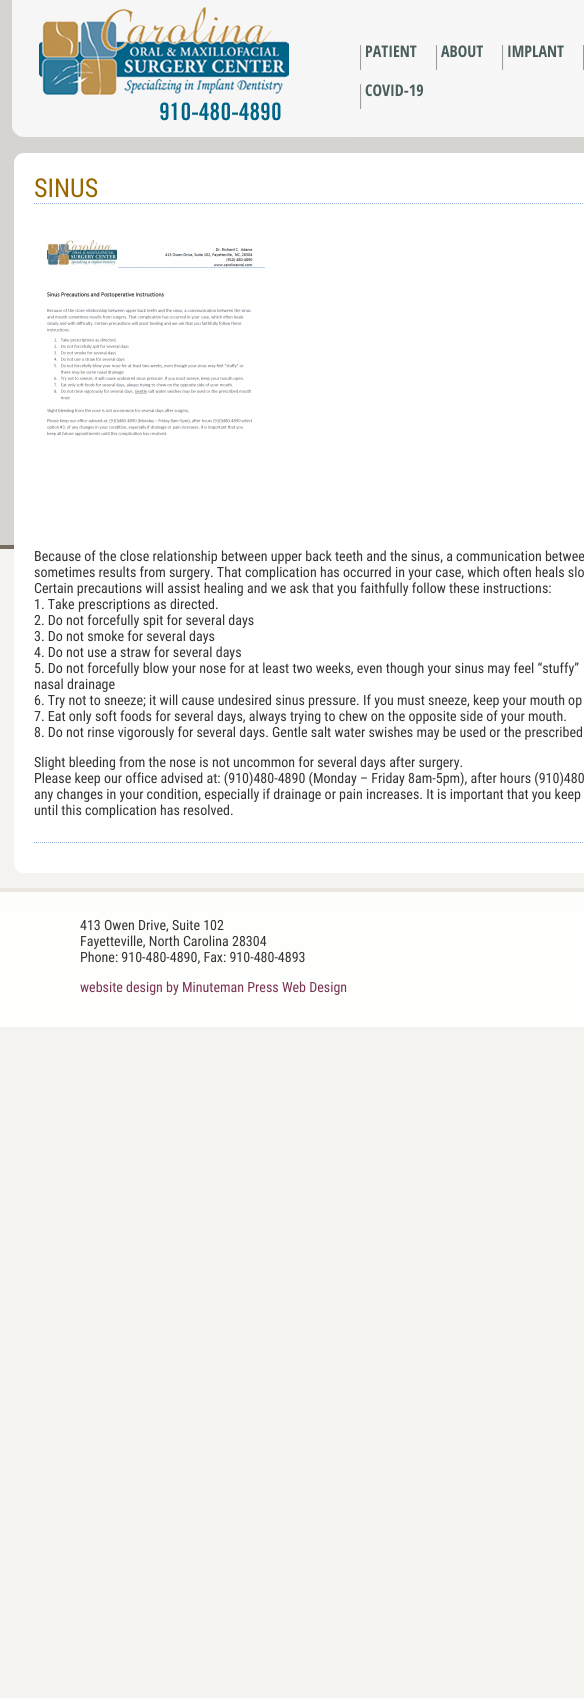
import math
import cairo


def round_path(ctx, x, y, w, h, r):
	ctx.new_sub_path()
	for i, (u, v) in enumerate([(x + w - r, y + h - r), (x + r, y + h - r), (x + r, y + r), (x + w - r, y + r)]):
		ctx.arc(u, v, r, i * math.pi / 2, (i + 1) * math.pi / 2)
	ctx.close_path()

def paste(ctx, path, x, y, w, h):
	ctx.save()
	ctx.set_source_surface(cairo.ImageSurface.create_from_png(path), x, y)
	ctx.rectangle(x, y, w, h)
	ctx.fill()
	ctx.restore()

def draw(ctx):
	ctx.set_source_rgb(0.957, 0.953, 0.937)
	ctx.paint()
	paste(ctx, 'media/1.png', 0, 0, 584, 549)
	paste(ctx, 'media/2.png', 12, 0, 341, 137)
	ctx.set_source_rgb(0.969, 0.965, 0.965)
	ctx.rectangle(353, 0, 231, 137)
	ctx.fill()
	paste(ctx, 'media/3.png', 360, 45, 2, 25)
	ctx.select_font_face('Open Sans Condensed', cairo.FONT_SLANT_NORMAL, cairo.FONT_WEIGHT_BOLD)
	ctx.set_font_size(16)
	ctx.set_source_rgb(0.286, 0.365, 0.361)
	ctx.move_to(365, 57)
	ctx.show_text('PATIENT')
	paste(ctx, 'media/4.png', 436, 45, 1, 25)
	ctx.move_to(441, 57)
	ctx.show_text('ABOUT')
	paste(ctx, 'media/3.png', 502, 45, 2, 25)
	ctx.move_to(507, 57)
	ctx.show_text('IMPLANT')
	paste(ctx, 'media/4.png', 583, 45, 1, 25)
	paste(ctx, 'media/3.png', 360, 84, 2, 25)
	ctx.move_to(365, 96)
	ctx.show_text('COVID-19')
	ctx.set_source_rgb(1, 1, 1)
	round_path(ctx, 14, 153, 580, 720, 10)
	ctx.fill()
	ctx.new_path()
	ctx.move_to(34, 203.5)
	ctx.line_to(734, 203.5)
	ctx.set_source_rgb(0.58, 0.694, 0.875)
	ctx.set_line_width(1)
	ctx.set_dash([1, 1])
	ctx.stroke()
	ctx.select_font_face('Roboto Condensed')
	ctx.set_font_size(26)
	ctx.set_source_rgb(0.6, 0.4, 0)
	ctx.move_to(34, 197)
	ctx.show_text('SINUS')
	paste(ctx, 'media/5.png', 47, 239, 218, 197)
	ctx.set_font_size(14)
	ctx.set_source_rgb(0.2, 0.2, 0.2)
	for x, y, s in [
		(34, 561, 'Because of the close relationship between upper back teeth and the sinus, a communication betwee'),
		(34, 577, 'sometimes results from surgery. That complication has occurred in your case, which often heals slo'),
		(34, 593, 'Certain precautions will assist healing and we ask that you faithfully follow these instructions:'),
		(34, 609, '1. Take prescriptions as directed.'),
		(34, 625, '2. Do not forcefully spit for several days'),
		(34, 641, '3. Do not smoke for several days'),
		(34, 657, '4. Do not use a straw for several days'),
		(34, 673, '5. Do not forcefully blow your nose for at least two weeks, even though your sinus may feel “stuffy”'),
		(34, 689, 'nasal drainage'),
		(34, 705, '6. Try not to sneeze; it will cause undesired sinus pressure. If you must sneeze, keep your mouth op'),
		(34, 721, '7. Eat only soft foods for several days, always trying to chew on the opposite side of your mouth.'),
		(34, 737, '8. Do not rinse vigorously for several days. Gentle salt water swishes may be used or the prescribed'),
		(34, 767, 'Slight bleeding from the nose is not uncommon for several days after surgery.'),
		(34, 783, 'Please keep our office advised at: (910)480-4890 (Monday – Friday 8am-5pm), after hours (910)480'),
		(34, 799, 'any changes in your condition, especially if drainage or pain increases. It is important that you keep'),
		(34, 815, 'until this complication has resolved.'),
	]:
		ctx.move_to(x, y)
		ctx.show_text(s)
	ctx.new_path()
	ctx.move_to(34, 842.5)
	ctx.line_to(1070, 842.5)
	ctx.set_source_rgb(0.58, 0.694, 0.875)
	ctx.stroke()
	paste(ctx, 'media/6.png', 0, 888, 584, 139)
	ctx.set_source_rgb(0.2, 0.2, 0.2)
	for x, y, s in [
		(80, 930, '413 Owen Drive, Suite 102'),
		(80, 946, 'Fayetteville, North Carolina 28304'),
		(80, 962, 'Phone: 910-480-4890, Fax: 910-480-4893'),
	]:
		ctx.move_to(x, y)
		ctx.show_text(s)
	ctx.set_source_rgb(0.478, 0.196, 0.329)
	ctx.move_to(80, 992)
	ctx.show_text('website design by Minuteman Press Web Design')


surface = cairo.ImageSurface(cairo.FORMAT_RGB24, 584, 1698)
ctx = cairo.Context(surface)
options = cairo.FontOptions()
options.set_hint_metrics(cairo.HINT_METRICS_OFF)
options.set_hint_style(cairo.HINT_STYLE_NONE)
ctx.set_font_options(options)
ctx.set_miter_limit(4)
draw(ctx)
surface.write_to_png('image.png')
